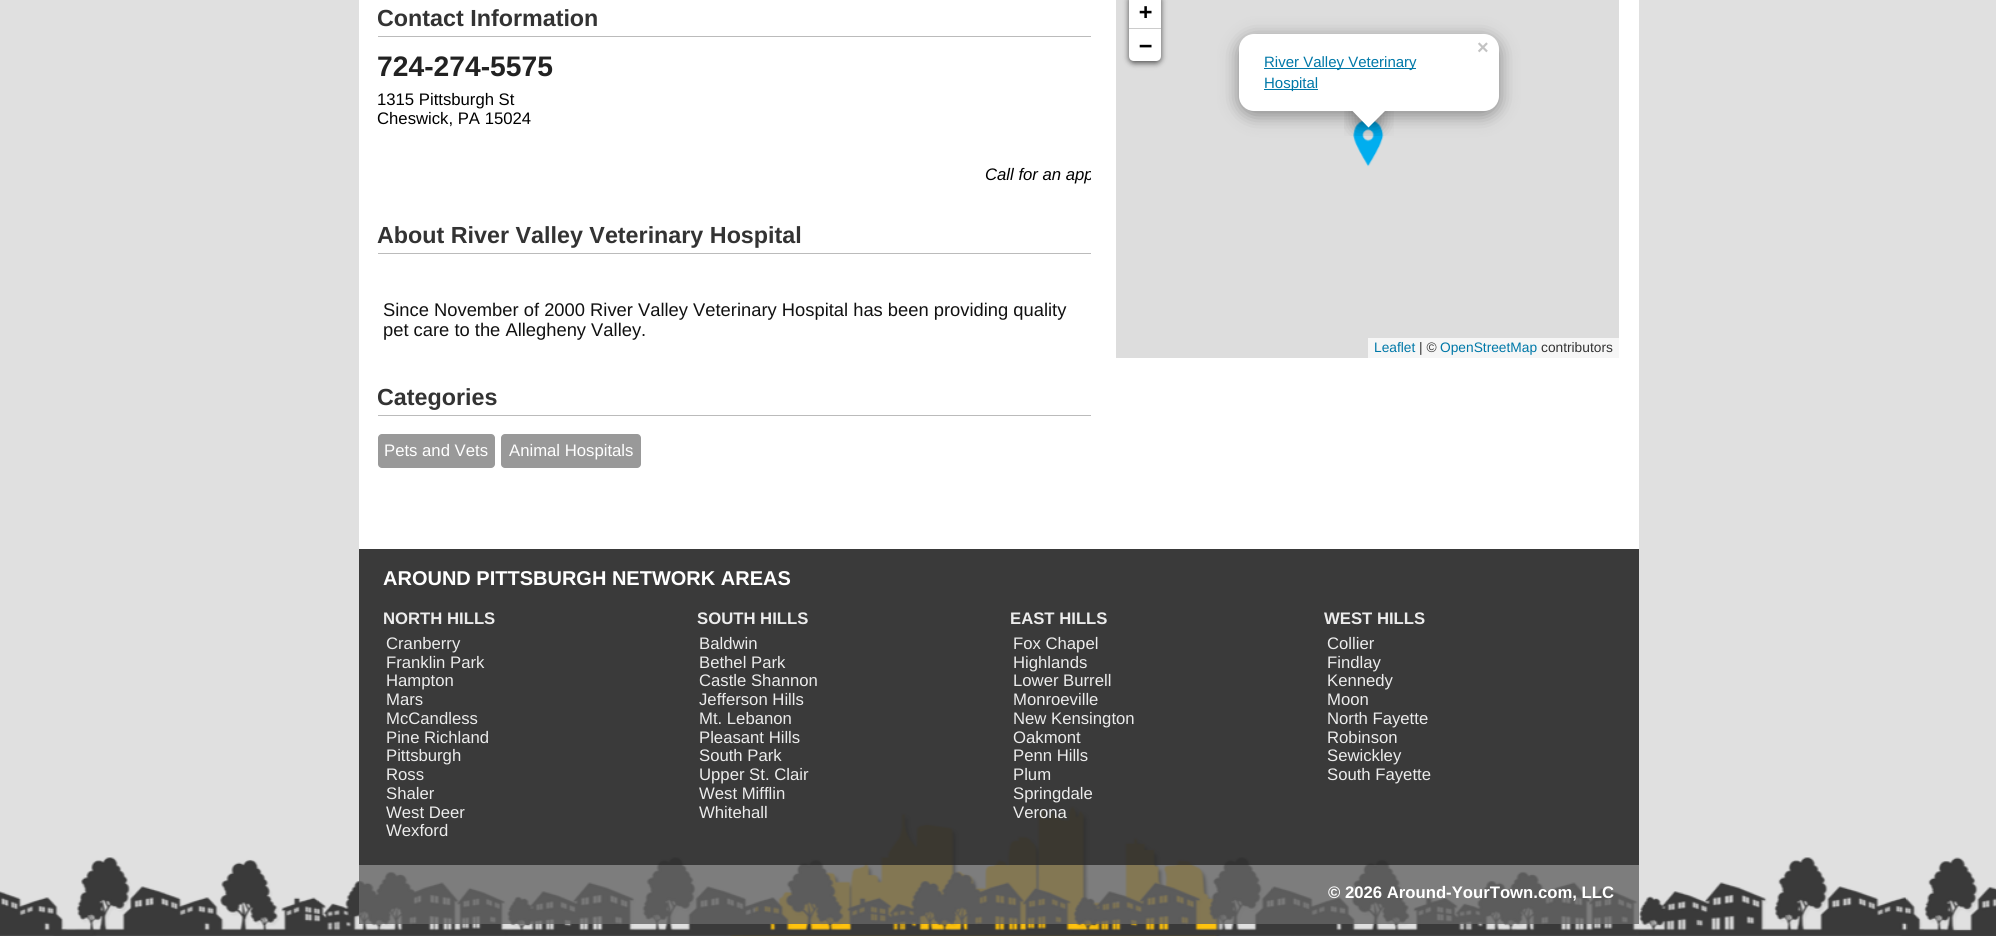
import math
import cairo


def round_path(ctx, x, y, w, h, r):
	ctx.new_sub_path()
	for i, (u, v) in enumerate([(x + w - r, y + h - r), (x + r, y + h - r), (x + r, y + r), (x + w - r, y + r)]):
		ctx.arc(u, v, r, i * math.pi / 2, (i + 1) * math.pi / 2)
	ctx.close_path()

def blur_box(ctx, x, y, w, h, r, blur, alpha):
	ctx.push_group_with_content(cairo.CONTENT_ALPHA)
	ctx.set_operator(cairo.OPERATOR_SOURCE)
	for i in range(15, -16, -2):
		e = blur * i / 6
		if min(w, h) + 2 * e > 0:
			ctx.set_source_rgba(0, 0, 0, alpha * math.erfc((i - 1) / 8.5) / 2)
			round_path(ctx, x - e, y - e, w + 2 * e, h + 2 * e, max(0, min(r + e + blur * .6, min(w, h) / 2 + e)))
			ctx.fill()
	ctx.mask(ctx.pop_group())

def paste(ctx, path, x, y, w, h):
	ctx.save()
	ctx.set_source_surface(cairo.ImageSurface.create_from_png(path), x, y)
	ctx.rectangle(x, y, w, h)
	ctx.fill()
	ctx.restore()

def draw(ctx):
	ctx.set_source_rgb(0.878, 0.878, 0.878)
	ctx.paint()
	paste(ctx, 'media/1.png', 0, 806, 1996, 130)
	ctx.set_source_rgb(1, 1, 1)
	ctx.rectangle(359, 0, 1280, 549)
	ctx.fill()
	ctx.select_font_face('Liberation Sans', cairo.FONT_SLANT_NORMAL, cairo.FONT_WEIGHT_BOLD)
	ctx.set_font_size(23.3)
	ctx.set_source_rgb(0.2, 0.2, 0.2)
	ctx.move_to(377, 26)
	ctx.show_text('Contact Information')
	ctx.set_source_rgb(0.733, 0.733, 0.733)
	ctx.rectangle(378, 36, 713, 1)
	ctx.fill()
	ctx.set_font_size(28.25)
	ctx.set_source_rgb(0.133, 0.133, 0.133)
	ctx.move_to(377, 76)
	ctx.show_text('724-274-5575')
	ctx.select_font_face('Liberation Sans')
	ctx.set_font_size(16.7)
	ctx.set_source_rgb(0, 0, 0)
	ctx.move_to(377, 105)
	ctx.show_text('1315 Pittsburgh St')
	ctx.move_to(377, 124)
	ctx.show_text('Cheswick, PA 15024')
	ctx.save()
	ctx.rectangle(378, 165, 713, 19)
	ctx.clip()
	ctx.select_font_face('Liberation Sans', cairo.FONT_SLANT_ITALIC)
	ctx.move_to(985, 180)
	ctx.show_text('Call for an app')
	ctx.restore()
	ctx.select_font_face('Liberation Sans', cairo.FONT_SLANT_NORMAL, cairo.FONT_WEIGHT_BOLD)
	ctx.set_font_size(23.3)
	ctx.set_source_rgb(0.2, 0.2, 0.2)
	ctx.move_to(377, 243)
	ctx.show_text('About River Valley Veterinary Hospital')
	ctx.set_source_rgb(0.733, 0.733, 0.733)
	ctx.rectangle(378, 253, 713, 1)
	ctx.fill()
	ctx.select_font_face('Liberation Sans')
	ctx.set_font_size(18.35)
	ctx.set_source_rgb(0.067, 0.067, 0.067)
	ctx.move_to(383, 316)
	ctx.show_text('Since November of 2000 River Valley Veterinary Hospital has been providing quality')
	ctx.move_to(383, 336)
	ctx.show_text('pet care to the Allegheny Valley.')
	ctx.select_font_face('Liberation Sans', cairo.FONT_SLANT_NORMAL, cairo.FONT_WEIGHT_BOLD)
	ctx.set_font_size(23.3)
	ctx.set_source_rgb(0.2, 0.2, 0.2)
	ctx.move_to(377, 405)
	ctx.show_text('Categories')
	ctx.set_source_rgb(0.733, 0.733, 0.733)
	ctx.rectangle(378, 415, 713, 1)
	ctx.fill()
	ctx.set_source_rgb(0.6, 0.6, 0.6)
	round_path(ctx, 378, 434, 117, 34, 4)
	ctx.fill()
	ctx.select_font_face('Liberation Sans')
	ctx.set_font_size(16.7)
	ctx.set_source_rgb(1, 1, 1)
	ctx.move_to(384, 456)
	ctx.show_text('Pets and Vets')
	ctx.set_source_rgb(0.6, 0.6, 0.6)
	round_path(ctx, 501, 434, 140, 34, 4)
	ctx.fill()
	ctx.set_source_rgb(1, 1, 1)
	ctx.move_to(509, 456)
	ctx.show_text('Animal Hospitals')
	ctx.set_source_rgb(0.867, 0.867, 0.867)
	ctx.rectangle(1116, 0, 503, 358)
	ctx.fill()
	ctx.set_source_rgb(0, 0, 0)
	blur_box(ctx, 1129, -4, 32, 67, 5, 3, 0.65)
	ctx.set_source_rgb(1, 1, 1)
	ctx.rectangle(1129, 0, 32, 28)
	ctx.fill()
	ctx.set_source_rgb(0.8, 0.8, 0.8)
	ctx.rectangle(1129, 28, 32, 1)
	ctx.fill()
	ctx.select_font_face('DejaVu Sans Mono', cairo.FONT_SLANT_NORMAL, cairo.FONT_WEIGHT_BOLD)
	ctx.set_font_size(22)
	ctx.set_source_rgb(0, 0, 0)
	ctx.move_to(1139, 19)
	ctx.show_text('+')
	ctx.set_source_rgb(1, 1, 1)
	ctx.new_path()
	ctx.move_to(1129, 29)
	ctx.line_to(1161, 29)
	ctx.line_to(1161, 56)
	ctx.curve_to(1161, 59, 1159, 61, 1156, 61)
	ctx.line_to(1134, 61)
	ctx.curve_to(1131, 61, 1129, 59, 1129, 56)
	ctx.close_path()
	ctx.fill()
	ctx.set_source_rgb(0, 0, 0)
	ctx.move_to(1139, 53)
	ctx.show_text('−')
	ctx.set_source_rgb(0.961, 0.961, 0.961)
	ctx.rectangle(1368, 338, 251, 20)
	ctx.fill()
	ctx.select_font_face('Liberation Sans')
	ctx.set_font_size(13.75)
	ctx.set_source_rgb(0, 0.471, 0.659)
	ctx.move_to(1374, 352)
	ctx.show_text('Leaflet')
	ctx.set_source_rgb(0.2, 0.2, 0.2)
	ctx.move_to(1419, 352)
	ctx.show_text('| ©')
	ctx.set_source_rgb(0, 0.471, 0.659)
	ctx.move_to(1440, 352)
	ctx.show_text('OpenStreetMap')
	ctx.set_source_rgb(0.2, 0.2, 0.2)
	ctx.move_to(1541, 352)
	ctx.show_text('contributors')
	paste(ctx, 'media/2.png', 1353, 120, 31, 47)
	ctx.set_source_rgb(0, 0, 0)
	blur_box(ctx, 1239, 38, 260, 77, 15, 9, 0.4)
	ctx.set_source_rgb(1, 1, 1)
	round_path(ctx, 1239, 34, 260, 77, 15)
	ctx.fill()
	ctx.select_font_face('Liberation Sans', cairo.FONT_SLANT_NORMAL, cairo.FONT_WEIGHT_BOLD)
	ctx.set_font_size(20)
	ctx.set_source_rgb(0.765, 0.765, 0.765)
	ctx.move_to(1477, 54)
	ctx.show_text('×')
	ctx.set_source_rgb(0, 0.471, 0.659)
	ctx.rectangle(1264, 68, 152, 1)
	ctx.fill()
	ctx.select_font_face('Liberation Sans')
	ctx.set_font_size(15)
	ctx.move_to(1264, 67)
	ctx.show_text('River Valley Veterinary')
	ctx.rectangle(1264, 89, 54, 1)
	ctx.fill()
	ctx.move_to(1264, 88)
	ctx.show_text('Hospital')
	ctx.save()
	ctx.rectangle(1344, 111, 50, 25)
	ctx.clip()
	ctx.set_source_rgb(0, 0, 0)
	blur_box(ctx, 1356, 103, 24, 23, 0, 9, 0.4)
	ctx.restore()
	ctx.save()
	ctx.rectangle(1344, 111, 50, 25)
	ctx.clip()
	ctx.set_source_rgb(1, 1, 1)
	ctx.new_path()
	ctx.move_to(1368.5, 94)
	ctx.line_to(1385.5, 110.5)
	ctx.line_to(1368.5, 127.5)
	ctx.line_to(1352, 110.5)
	ctx.close_path()
	ctx.fill()
	ctx.restore()
	ctx.set_source_rgba(0.196, 0.196, 0.196, 0.95)
	ctx.rectangle(359, 549, 1280, 316)
	ctx.fill()
	ctx.select_font_face('Liberation Sans', cairo.FONT_SLANT_NORMAL, cairo.FONT_WEIGHT_BOLD)
	ctx.set_font_size(20)
	ctx.set_source_rgb(1, 1, 1)
	ctx.move_to(383, 585)
	ctx.show_text('AROUND PITTSBURGH NETWORK AREAS')
	ctx.set_font_size(16.7)
	ctx.set_source_rgb(0.925, 0.925, 0.925)
	ctx.move_to(383, 624)
	ctx.show_text('NORTH HILLS')
	ctx.select_font_face('Liberation Sans')
	for x, y, s in [
		(386, 649, 'Cranberry'),
		(386, 668, 'Franklin Park'),
		(386, 686, 'Hampton'),
		(386, 705, 'Mars'),
		(386, 724, 'McCandless'),
		(386, 743, 'Pine Richland'),
		(386, 761, 'Pittsburgh'),
		(386, 780, 'Ross'),
		(386, 799, 'Shaler'),
		(386, 818, 'West Deer'),
		(386, 836, 'Wexford'),
	]:
		ctx.move_to(x, y)
		ctx.show_text(s)
	ctx.select_font_face('Liberation Sans', cairo.FONT_SLANT_NORMAL, cairo.FONT_WEIGHT_BOLD)
	ctx.move_to(697, 624)
	ctx.show_text('SOUTH HILLS')
	ctx.select_font_face('Liberation Sans')
	for x, y, s in [
		(699, 649, 'Baldwin'),
		(699, 668, 'Bethel Park'),
		(699, 686, 'Castle Shannon'),
		(699, 705, 'Jefferson Hills'),
		(699, 724, 'Mt. Lebanon'),
		(699, 743, 'Pleasant Hills'),
		(699, 761, 'South Park'),
		(699, 780, 'Upper St. Clair'),
		(699, 799, 'West Mifflin'),
		(699, 818, 'Whitehall'),
	]:
		ctx.move_to(x, y)
		ctx.show_text(s)
	ctx.select_font_face('Liberation Sans', cairo.FONT_SLANT_NORMAL, cairo.FONT_WEIGHT_BOLD)
	ctx.move_to(1010, 624)
	ctx.show_text('EAST HILLS')
	ctx.select_font_face('Liberation Sans')
	for x, y, s in [
		(1013, 649, 'Fox Chapel'),
		(1013, 668, 'Highlands'),
		(1013, 686, 'Lower Burrell'),
		(1013, 705, 'Monroeville'),
		(1013, 724, 'New Kensington'),
		(1013, 743, 'Oakmont'),
		(1013, 761, 'Penn Hills'),
		(1013, 780, 'Plum'),
		(1013, 799, 'Springdale'),
		(1013, 818, 'Verona'),
	]:
		ctx.move_to(x, y)
		ctx.show_text(s)
	ctx.select_font_face('Liberation Sans', cairo.FONT_SLANT_NORMAL, cairo.FONT_WEIGHT_BOLD)
	ctx.move_to(1324, 624)
	ctx.show_text('WEST HILLS')
	ctx.select_font_face('Liberation Sans')
	for x, y, s in [
		(1327, 649, 'Collier'),
		(1327, 668, 'Findlay'),
		(1327, 686, 'Kennedy'),
		(1327, 705, 'Moon'),
		(1327, 724, 'North Fayette'),
		(1327, 743, 'Robinson'),
		(1327, 761, 'Sewickley'),
		(1327, 780, 'South Fayette'),
	]:
		ctx.move_to(x, y)
		ctx.show_text(s)
	ctx.set_source_rgba(0.392, 0.392, 0.392, 0.8)
	ctx.rectangle(359, 865, 1280, 59)
	ctx.fill()
	ctx.select_font_face('Liberation Sans', cairo.FONT_SLANT_NORMAL, cairo.FONT_WEIGHT_BOLD)
	ctx.set_source_rgb(1, 1, 1)
	ctx.move_to(1328, 898)
	ctx.show_text('© 2026 Around-YourTown.com, LLC')


surface = cairo.ImageSurface(cairo.FORMAT_RGB24, 1996, 936)
ctx = cairo.Context(surface)
options = cairo.FontOptions()
options.set_hint_metrics(cairo.HINT_METRICS_OFF)
options.set_hint_style(cairo.HINT_STYLE_NONE)
ctx.set_font_options(options)
ctx.set_miter_limit(4)
draw(ctx)
surface.write_to_png('image.png')
